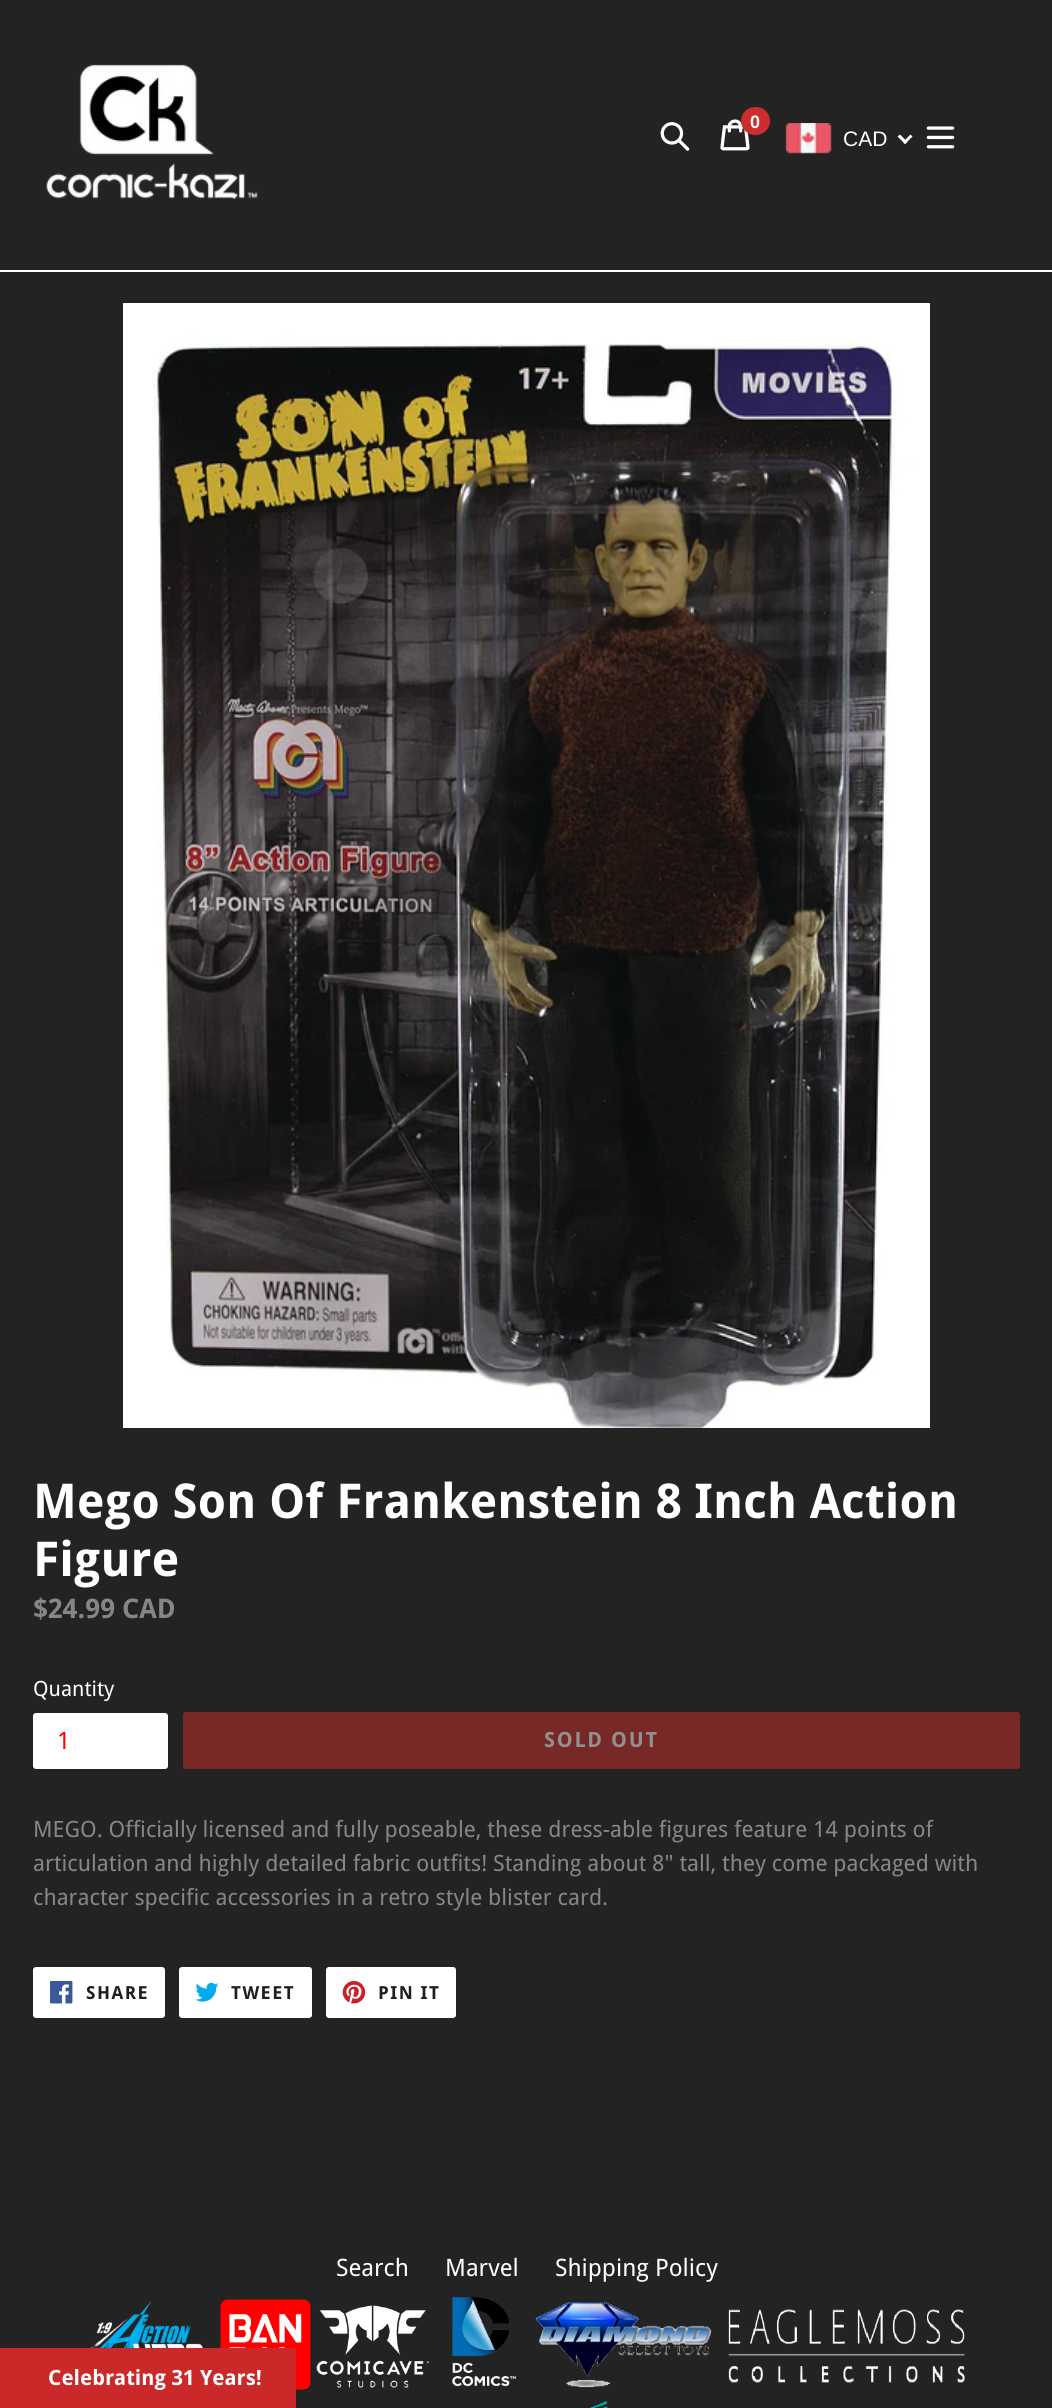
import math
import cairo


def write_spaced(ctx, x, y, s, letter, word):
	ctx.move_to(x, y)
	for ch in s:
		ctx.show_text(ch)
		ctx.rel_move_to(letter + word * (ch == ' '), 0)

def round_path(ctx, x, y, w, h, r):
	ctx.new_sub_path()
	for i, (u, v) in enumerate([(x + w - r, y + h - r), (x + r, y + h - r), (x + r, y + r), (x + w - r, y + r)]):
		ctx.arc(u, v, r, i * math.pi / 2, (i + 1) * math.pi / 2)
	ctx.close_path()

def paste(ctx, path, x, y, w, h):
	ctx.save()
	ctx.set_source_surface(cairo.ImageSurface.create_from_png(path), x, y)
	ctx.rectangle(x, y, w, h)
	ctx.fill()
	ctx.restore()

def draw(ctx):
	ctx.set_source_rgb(0.137, 0.137, 0.137)
	ctx.paint()
	ctx.set_source_rgb(1, 1, 1)
	ctx.rectangle(0, 270, 1052, 2)
	ctx.fill()
	paste(ctx, 'media/1.png', 46, 64, 212, 135)
	paste(ctx, 'media/2.png', 660, 122, 30, 29)
	paste(ctx, 'media/3.png', 720, 119, 30, 32)
	ctx.set_source_rgb(0.808, 0.176, 0.176)
	round_path(ctx, 741, 107, 29, 28, 14)
	ctx.fill()
	ctx.select_font_face('Liberation Sans', cairo.FONT_SLANT_NORMAL, cairo.FONT_WEIGHT_BOLD)
	ctx.set_font_size(18)
	ctx.set_source_rgb(1, 1, 1)
	ctx.move_to(750, 128)
	ctx.show_text('0')
	paste(ctx, 'media/4.png', 785, 123, 47, 31)
	ctx.select_font_face('Liberation Sans')
	ctx.set_font_size(21)
	ctx.move_to(843, 146)
	ctx.show_text('CAD')
	ctx.new_path()
	ctx.move_to(910.5, 134.5)
	ctx.line_to(912.5, 136.5)
	ctx.line_to(905, 144)
	ctx.line_to(903, 142)
	ctx.close_path()
	ctx.fill()
	ctx.new_path()
	ctx.move_to(900, 134.5)
	ctx.line_to(907.5, 142)
	ctx.line_to(905, 144)
	ctx.line_to(897.5, 136.5)
	ctx.close_path()
	ctx.fill()
	paste(ctx, 'media/5.png', 926, 126, 29, 23)
	paste(ctx, 'media/11.png', 220, 2299, 91, 91)
	ctx.set_source_rgb(0.796, 0.161, 0.161)
	ctx.rectangle(0, 2348, 296, 60)
	ctx.fill()
	ctx.select_font_face('Droid Sans', cairo.FONT_SLANT_NORMAL, cairo.FONT_WEIGHT_BOLD)
	ctx.set_source_rgb(1, 1, 1)
	ctx.move_to(48, 2385)
	ctx.show_text('Celebrating 31 Years!')
	paste(ctx, 'media/6.png', 123, 303, 807, 1125)
	ctx.set_font_size(48)
	ctx.move_to(33, 1518)
	ctx.show_text('Mego Son Of Frankenstein 8 Inch Action')
	ctx.move_to(33, 1576)
	ctx.show_text('Figure')
	ctx.set_font_size(27)
	ctx.set_source_rgb(0.525, 0.525, 0.525)
	ctx.move_to(33, 1618)
	ctx.show_text('$24.99 CAD')
	ctx.select_font_face('Droid Sans')
	ctx.set_font_size(21)
	ctx.set_source_rgb(1, 1, 1)
	ctx.move_to(33, 1696)
	ctx.show_text('Quantity')
	round_path(ctx, 34, 1714, 133, 54, 2)
	ctx.fill_preserve()
	ctx.stroke()
	ctx.set_font_size(24)
	ctx.set_source_rgb(1, 0, 0)
	ctx.move_to(57, 1749)
	ctx.show_text('1')
	ctx.set_source_rgb(0.475, 0.157, 0.157)
	round_path(ctx, 183, 1712, 837, 57, 3)
	ctx.fill()
	ctx.select_font_face('Droid Sans', cairo.FONT_SLANT_NORMAL, cairo.FONT_WEIGHT_BOLD)
	ctx.set_font_size(21)
	ctx.set_source_rgb(0.569, 0.569, 0.569)
	write_spaced(ctx, 544, 1747, 'SOLD OUT', 1.75, 0)
	ctx.select_font_face('Droid Sans')
	ctx.set_font_size(22.5)
	ctx.set_source_rgb(0.525, 0.525, 0.525)
	for x, y, s in [
		(33, 1837, 'MEGO. Officially licensed and fully poseable, these dress-able figures feature 14 points of'),
		(33, 1871, 'articulation and highly detailed fabric outfits! Standing about 8" tall, they come packaged with'),
		(33, 1905, 'character specific accessories in a retro style blister card.'),
	]:
		ctx.move_to(x, y)
		ctx.show_text(s)
	ctx.set_source_rgb(1, 1, 1)
	round_path(ctx, 34, 1968, 130, 49, 2)
	ctx.fill_preserve()
	ctx.stroke()
	paste(ctx, 'media/7.png', 50, 1981, 23, 23)
	ctx.select_font_face('Droid Sans', cairo.FONT_SLANT_NORMAL, cairo.FONT_WEIGHT_BOLD)
	ctx.set_font_size(18)
	ctx.set_source_rgb(0.118, 0.118, 0.118)
	write_spaced(ctx, 86, 1999, 'SHARE', 1.5, 0)
	ctx.set_source_rgb(1, 1, 1)
	round_path(ctx, 180, 1968, 131, 49, 2)
	ctx.fill_preserve()
	ctx.stroke()
	paste(ctx, 'media/8.png', 195, 1982, 24, 20)
	ctx.set_source_rgb(0.118, 0.118, 0.118)
	write_spaced(ctx, 231, 1999, 'TWEET', 1.5, 0)
	ctx.set_source_rgb(1, 1, 1)
	round_path(ctx, 327, 1968, 128, 49, 2)
	ctx.fill_preserve()
	ctx.stroke()
	paste(ctx, 'media/9.png', 342, 1981, 24, 23)
	ctx.set_source_rgb(0.118, 0.118, 0.118)
	write_spaced(ctx, 378, 1999, 'PIN IT', 1.5, 0)
	ctx.select_font_face('Droid Sans')
	ctx.set_font_size(24)
	ctx.set_source_rgb(1, 1, 1)
	for x, y, s in [
		(336, 2276, 'Search'),
		(445, 2276, 'Marvel'),
		(555, 2276, 'Shipping Policy'),
	]:
		ctx.move_to(x, y)
		ctx.show_text(s)
	paste(ctx, 'media/10.png', 91, 2301, 112, 47)
	paste(ctx, 'media/12.png', 316, 2305, 113, 83)
	paste(ctx, 'media/13.png', 452, 2297, 64, 90)
	paste(ctx, 'media/14.png', 535, 2302, 177, 86)
	paste(ctx, 'media/15.png', 728, 2309, 237, 74)
	paste(ctx, 'media/16.png', 590, 2401, 18, 7)


surface = cairo.ImageSurface(cairo.FORMAT_RGB24, 1052, 2408)
ctx = cairo.Context(surface)
options = cairo.FontOptions()
options.set_hint_metrics(cairo.HINT_METRICS_OFF)
options.set_hint_style(cairo.HINT_STYLE_NONE)
ctx.set_font_options(options)
ctx.set_miter_limit(4)
draw(ctx)
surface.write_to_png('image.png')
